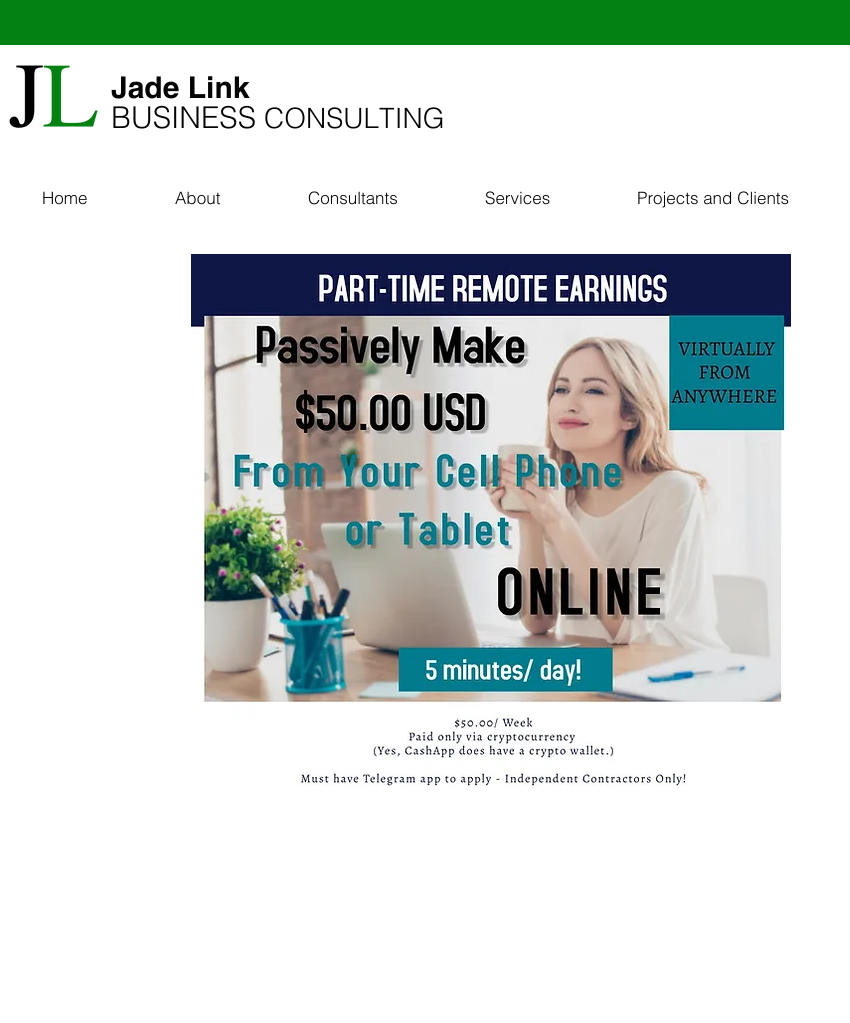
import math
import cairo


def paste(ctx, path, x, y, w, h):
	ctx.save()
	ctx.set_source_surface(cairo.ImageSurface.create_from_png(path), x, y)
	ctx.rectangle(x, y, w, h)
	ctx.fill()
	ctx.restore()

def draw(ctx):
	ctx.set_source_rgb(1, 1, 1)
	ctx.paint()
	ctx.set_source_rgb(0.012, 0.506, 0.071)
	ctx.rectangle(0, 0, 850, 45)
	ctx.fill()
	paste(ctx, 'media/1.png', 9, 65, 89, 63)
	ctx.select_font_face('helvetica', cairo.FONT_SLANT_NORMAL, cairo.FONT_WEIGHT_BOLD)
	ctx.set_font_size(30)
	ctx.set_source_rgb(0.02, 0.02, 0.02)
	ctx.move_to(111, 98)
	ctx.show_text('Jade Link')
	ctx.select_font_face('helvetica Light')
	ctx.move_to(111, 128)
	ctx.show_text('BUSINESS')
	ctx.set_font_size(28)
	ctx.move_to(264, 128)
	ctx.show_text('CONSULTING')
	ctx.set_font_size(17)
	for x, y, s in [
		(42, 204, 'Home'),
		(175, 204, 'About'),
		(308, 204, 'Consultants'),
		(485, 204, 'Services'),
		(637, 204, 'Projects and Clients'),
	]:
		ctx.move_to(x, y)
		ctx.show_text(s)
	paste(ctx, 'media/2.png', 191, 254, 600, 532)


surface = cairo.ImageSurface(cairo.FORMAT_RGB24, 850, 1023)
ctx = cairo.Context(surface)
options = cairo.FontOptions()
options.set_hint_metrics(cairo.HINT_METRICS_OFF)
options.set_hint_style(cairo.HINT_STYLE_NONE)
ctx.set_font_options(options)
ctx.set_miter_limit(4)
draw(ctx)
surface.write_to_png('image.png')
